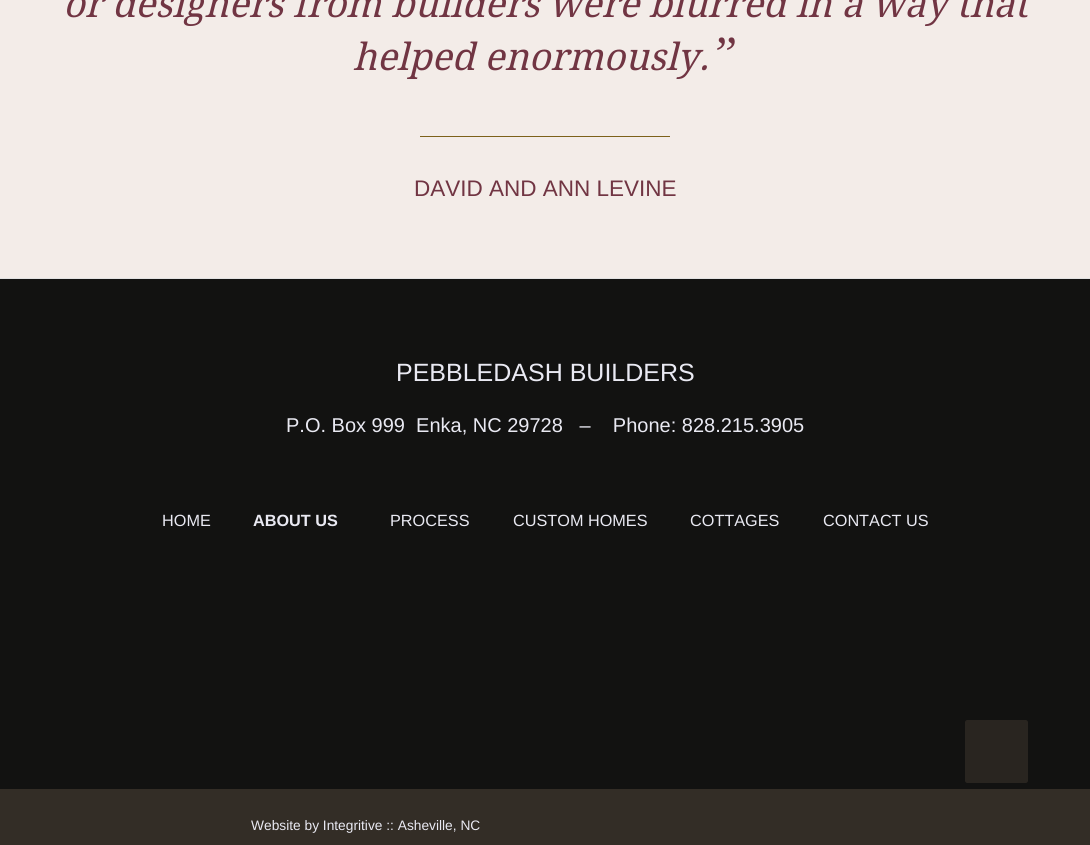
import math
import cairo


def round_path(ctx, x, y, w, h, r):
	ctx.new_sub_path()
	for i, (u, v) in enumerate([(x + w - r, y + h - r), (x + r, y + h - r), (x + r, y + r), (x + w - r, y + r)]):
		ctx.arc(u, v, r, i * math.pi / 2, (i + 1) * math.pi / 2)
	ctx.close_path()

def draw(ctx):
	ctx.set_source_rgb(0.953, 0.925, 0.91)
	ctx.paint()
	ctx.select_font_face('Droid Serif', cairo.FONT_SLANT_ITALIC)
	ctx.set_font_size(37.5)
	ctx.set_source_rgb(0.443, 0.208, 0.263)
	ctx.move_to(63, 17)
	ctx.show_text('or designers from builders were blurred in a way that')
	ctx.move_to(353, 70)
	ctx.show_text('helped enormously.')
	ctx.select_font_face('Liberation Serif', cairo.FONT_SLANT_ITALIC)
	ctx.set_font_size(49)
	ctx.move_to(710, 70)
	ctx.show_text('”')
	ctx.set_source_rgb(0.486, 0.38, 0.102)
	ctx.rectangle(420, 136, 250, 1)
	ctx.fill()
	ctx.select_font_face('Arimo')
	ctx.set_font_size(22.5)
	ctx.set_source_rgb(0.443, 0.208, 0.263)
	ctx.move_to(414, 196)
	ctx.show_text('DAVID AND ANN LEVINE')
	ctx.set_source_rgb(0.071, 0.071, 0.067)
	ctx.rectangle(0, 279, 1090, 510)
	ctx.fill()
	ctx.set_source_rgb(0.882, 0.882, 0.882)
	ctx.rectangle(0, 278, 1090, 1)
	ctx.fill()
	ctx.select_font_face('Liberation Sans')
	ctx.set_font_size(25)
	ctx.set_source_rgb(0.914, 0.914, 0.949)
	ctx.move_to(396, 381)
	ctx.show_text('PEBBLEDASH BUILDERS')
	ctx.set_font_size(20)
	ctx.move_to(286, 432)
	ctx.show_text('P.O. Box 999  Enka, NC 29728   –    Phone: 828.215.3905')
	ctx.set_font_size(16.25)
	ctx.move_to(162, 526)
	ctx.show_text('HOME')
	ctx.select_font_face('Liberation Sans', cairo.FONT_SLANT_NORMAL, cairo.FONT_WEIGHT_BOLD)
	ctx.move_to(253, 526)
	ctx.show_text('ABOUT US')
	ctx.select_font_face('Liberation Sans')
	for x, y, s in [
		(390, 526, 'PROCESS'),
		(513, 526, 'CUSTOM HOMES'),
		(690, 526, 'COTTAGES'),
		(823, 526, 'CONTACT US'),
	]:
		ctx.move_to(x, y)
		ctx.show_text(s)
	ctx.set_source_rgb(0.2, 0.176, 0.149)
	ctx.rectangle(0, 789, 1090, 56)
	ctx.fill()
	ctx.set_font_size(13.75)
	ctx.set_source_rgb(0.914, 0.914, 0.949)
	ctx.move_to(251, 830)
	ctx.show_text('Website by Integritive :: Asheville, NC')
	ctx.set_source_rgb(0.161, 0.145, 0.125)
	round_path(ctx, 965.5, 720.5, 62, 62, 2)
	ctx.fill_preserve()
	ctx.set_line_width(1)
	ctx.stroke()


surface = cairo.ImageSurface(cairo.FORMAT_RGB24, 1090, 845)
ctx = cairo.Context(surface)
options = cairo.FontOptions()
options.set_hint_metrics(cairo.HINT_METRICS_OFF)
options.set_hint_style(cairo.HINT_STYLE_NONE)
ctx.set_font_options(options)
ctx.set_miter_limit(4)
draw(ctx)
surface.write_to_png('image.png')
